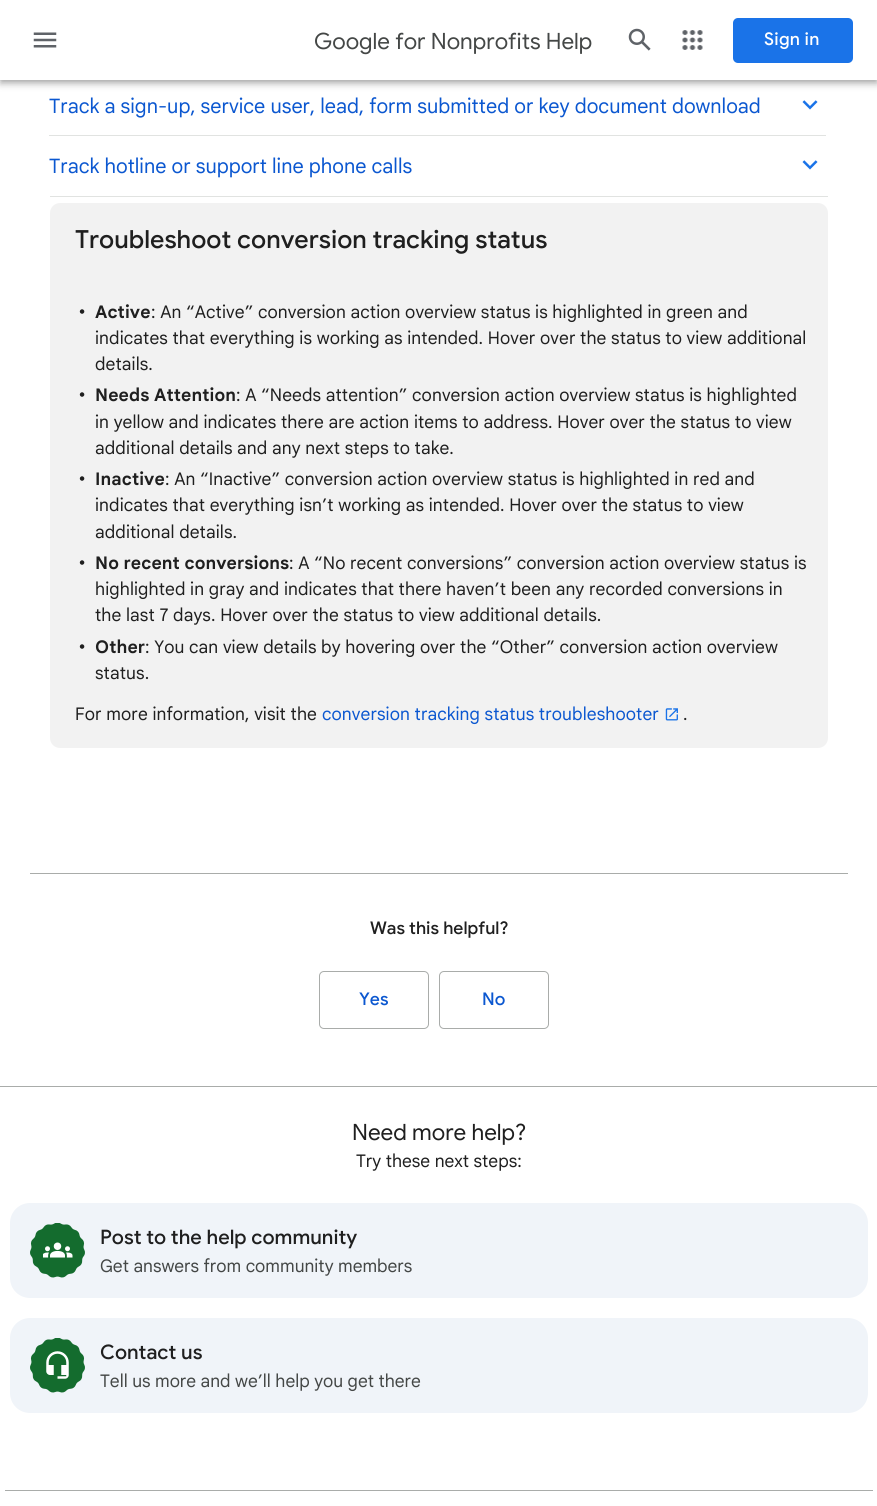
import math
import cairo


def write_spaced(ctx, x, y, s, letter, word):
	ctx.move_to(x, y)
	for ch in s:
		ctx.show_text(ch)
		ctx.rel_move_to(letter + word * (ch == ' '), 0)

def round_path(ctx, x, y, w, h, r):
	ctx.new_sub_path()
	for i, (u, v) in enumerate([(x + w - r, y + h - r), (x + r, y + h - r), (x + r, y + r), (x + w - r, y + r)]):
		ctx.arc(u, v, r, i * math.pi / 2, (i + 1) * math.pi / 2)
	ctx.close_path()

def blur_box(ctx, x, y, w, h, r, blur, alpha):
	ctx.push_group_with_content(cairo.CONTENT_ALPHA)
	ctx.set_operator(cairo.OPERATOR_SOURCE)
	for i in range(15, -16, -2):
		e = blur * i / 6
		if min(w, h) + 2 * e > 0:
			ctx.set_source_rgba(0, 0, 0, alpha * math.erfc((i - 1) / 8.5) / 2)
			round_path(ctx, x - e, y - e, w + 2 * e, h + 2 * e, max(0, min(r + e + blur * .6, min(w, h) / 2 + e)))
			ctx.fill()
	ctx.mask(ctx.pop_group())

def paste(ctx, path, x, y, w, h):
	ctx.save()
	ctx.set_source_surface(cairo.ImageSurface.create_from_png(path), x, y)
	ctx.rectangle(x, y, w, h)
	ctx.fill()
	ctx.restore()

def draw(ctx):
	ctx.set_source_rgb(1, 1, 1)
	ctx.paint()
	ctx.set_source_rgb(0, 0, 0)
	blur_box(ctx, 1, 4, 875, 77, 0, 2.5, 0.2)
	blur_box(ctx, 0, 1, 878, 80, 0, 6, 0.12)
	blur_box(ctx, 0, 5, 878, 80, 0, 3, 0.14)
	ctx.set_source_rgb(1, 1, 1)
	ctx.rectangle(0, 0, 877, 80)
	ctx.fill()
	paste(ctx, 'media/1.png', 33, 32, 24, 16)
	ctx.select_font_face('Google Sans')
	ctx.set_font_size(22.5)
	ctx.set_source_rgb(0.267, 0.278, 0.275)
	ctx.move_to(314, 49)
	ctx.show_text('Google for Nonprofits Help')
	paste(ctx, 'media/2.png', 628, 28, 23, 23)
	paste(ctx, 'media/3.png', 682, 30, 21, 20)
	ctx.set_source_rgb(0.102, 0.451, 0.91)
	round_path(ctx, 733, 18, 120, 45, 5)
	ctx.fill()
	ctx.select_font_face('Google Sans Medium')
	ctx.set_font_size(17.5)
	ctx.set_source_rgb(1, 1, 1)
	write_spaced(ctx, 764, 45, 'Sign in', 0.25, 0)
	ctx.select_font_face('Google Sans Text')
	ctx.set_font_size(20)
	ctx.set_source_rgb(0.043, 0.341, 0.816)
	ctx.move_to(49, 113)
	ctx.show_text('Track a sign-up, service user, lead, form submitted or key document download')
	paste(ctx, 'media/4.png', 802, 100, 16, 10)
	ctx.set_source_rgb(0.882, 0.89, 0.882)
	ctx.rectangle(50, 196, 778, 1)
	ctx.fill()
	ctx.rectangle(49, 135, 777, 1)
	ctx.fill()
	ctx.set_source_rgb(0.043, 0.341, 0.816)
	ctx.move_to(49, 173)
	ctx.show_text('Track hotline or support line phone calls')
	paste(ctx, 'media/4.png', 802, 160, 16, 10)
	ctx.set_source_rgb(0.949, 0.949, 0.949)
	round_path(ctx, 50, 203, 778, 545, 10)
	ctx.fill()
	ctx.select_font_face('Google Sans Medium')
	ctx.set_font_size(25)
	ctx.set_source_rgb(0.122, 0.122, 0.122)
	ctx.move_to(75, 248)
	ctx.show_text('Troubleshoot conversion tracking status')
	ctx.select_font_face('Google Sans Text')
	ctx.set_font_size(20)
	write_spaced(ctx, 78, 318, '•', 0.1, 0)
	ctx.select_font_face('Google Sans Text', cairo.FONT_SLANT_NORMAL, cairo.FONT_WEIGHT_BOLD)
	ctx.set_font_size(17.5)
	write_spaced(ctx, 95, 318, 'Active', 0.1, 0)
	ctx.select_font_face('Google Sans Text')
	for x, y, s in [
		(151, 318, ': An “Active” conversion action overview status is highlighted in green and'),
		(95, 344, 'indicates that everything is working as intended. Hover over the status to view additional'),
		(95, 370, 'details.'),
	]:
		write_spaced(ctx, x, y, s, 0.1, 0)
	ctx.set_font_size(20)
	write_spaced(ctx, 78, 401, '•', 0.1, 0)
	ctx.select_font_face('Google Sans Text', cairo.FONT_SLANT_NORMAL, cairo.FONT_WEIGHT_BOLD)
	ctx.set_font_size(17.5)
	write_spaced(ctx, 95, 401, 'Needs Attention', 0.1, 0)
	ctx.select_font_face('Google Sans Text')
	for x, y, s in [
		(236, 401, ': A “Needs attention” conversion action overview status is highlighted'),
		(95, 428, 'in yellow and indicates there are action items to address. Hover over the status to view'),
		(95, 454, 'additional details and any next steps to take.'),
	]:
		write_spaced(ctx, x, y, s, 0.1, 0)
	ctx.set_font_size(20)
	write_spaced(ctx, 78, 485, '•', 0.1, 0)
	ctx.select_font_face('Google Sans Text', cairo.FONT_SLANT_NORMAL, cairo.FONT_WEIGHT_BOLD)
	ctx.set_font_size(17.5)
	write_spaced(ctx, 95, 485, 'Inactive', 0.1, 0)
	ctx.select_font_face('Google Sans Text')
	for x, y, s in [
		(165, 485, ': An “Inactive” conversion action overview status is highlighted in red and'),
		(95, 511, 'indicates that everything isn’t working as intended. Hover over the status to view'),
		(95, 538, 'additional details.'),
	]:
		write_spaced(ctx, x, y, s, 0.1, 0)
	ctx.set_font_size(20)
	write_spaced(ctx, 78, 569, '•', 0.1, 0)
	ctx.select_font_face('Google Sans Text', cairo.FONT_SLANT_NORMAL, cairo.FONT_WEIGHT_BOLD)
	ctx.set_font_size(17.5)
	write_spaced(ctx, 95, 569, 'No recent conversions', 0.1, 0)
	ctx.select_font_face('Google Sans Text')
	for x, y, s in [
		(289, 569, ': A “No recent conversions” conversion action overview status is'),
		(95, 595, 'highlighted in gray and indicates that there haven’t been any recorded conversions in'),
		(95, 621, 'the last 7 days. Hover over the status to view additional details.'),
	]:
		write_spaced(ctx, x, y, s, 0.1, 0)
	ctx.set_font_size(20)
	write_spaced(ctx, 78, 653, '•', 0.1, 0)
	ctx.select_font_face('Google Sans Text', cairo.FONT_SLANT_NORMAL, cairo.FONT_WEIGHT_BOLD)
	ctx.set_font_size(17.5)
	write_spaced(ctx, 95, 653, 'Other', 0.1, 0)
	ctx.select_font_face('Google Sans Text')
	for x, y, s in [
		(145, 653, ': You can view details by hovering over the “Other” conversion action overview'),
		(95, 679, 'status.'),
		(75, 720, 'For more information, visit the'),
	]:
		write_spaced(ctx, x, y, s, 0.1, 0)
	ctx.set_source_rgb(0.043, 0.341, 0.816)
	write_spaced(ctx, 322, 720, 'conversion tracking status troubleshooter', 0.1, 0)
	paste(ctx, 'media/5.png', 665, 708, 13, 13)
	ctx.set_source_rgb(0.122, 0.122, 0.122)
	write_spaced(ctx, 683, 720, '.', 0.1, 0)
	ctx.set_source_rgb(0.663, 0.675, 0.667)
	ctx.rectangle(30, 873, 818, 1)
	ctx.fill()
	ctx.select_font_face('Google Sans Medium')
	ctx.set_source_rgb(0.122, 0.122, 0.122)
	ctx.move_to(370, 934)
	ctx.show_text('Was this helpful?')
	round_path(ctx, 319.5, 971.5, 109, 57, 4.5)
	ctx.set_source_rgb(0.663, 0.675, 0.667)
	ctx.set_line_width(1)
	ctx.stroke()
	ctx.set_source_rgb(0.043, 0.341, 0.816)
	ctx.move_to(359, 1005)
	ctx.show_text('Yes')
	round_path(ctx, 439.5, 971.5, 109, 57, 4.5)
	ctx.set_source_rgb(0.663, 0.675, 0.667)
	ctx.stroke()
	ctx.set_source_rgb(0.043, 0.341, 0.816)
	ctx.move_to(482, 1005)
	ctx.show_text('No')
	ctx.set_source_rgb(0.663, 0.675, 0.667)
	ctx.rectangle(0, 1086, 877, 1)
	ctx.fill()
	ctx.select_font_face('Google Sans')
	ctx.set_font_size(22.5)
	ctx.set_source_rgb(0.122, 0.122, 0.122)
	ctx.move_to(352, 1140)
	ctx.show_text('Need more help?')
	ctx.select_font_face('Google Sans Text')
	ctx.set_font_size(17.5)
	ctx.move_to(356, 1167)
	ctx.show_text('Try these next steps:')
	ctx.set_source_rgb(0.941, 0.957, 0.976)
	round_path(ctx, 10, 1203, 858, 95, 20)
	ctx.fill()
	paste(ctx, 'media/6.png', 30, 1223, 55, 55)
	paste(ctx, 'media/7.png', 43, 1242, 30, 16)
	ctx.select_font_face('Google Sans Medium')
	ctx.set_font_size(20)
	ctx.set_source_rgb(0.122, 0.122, 0.122)
	ctx.move_to(100, 1244)
	ctx.show_text('Post to the help community')
	ctx.select_font_face('Google Sans Text')
	ctx.set_font_size(17.5)
	ctx.set_source_rgb(0.267, 0.278, 0.275)
	ctx.move_to(100, 1272)
	ctx.show_text('Get answers from community members')
	ctx.set_source_rgb(0.941, 0.957, 0.976)
	round_path(ctx, 10, 1318, 858, 95, 20)
	ctx.fill()
	paste(ctx, 'media/6.png', 30, 1338, 55, 55)
	paste(ctx, 'media/8.png', 46, 1351, 23, 28)
	ctx.select_font_face('Google Sans Medium')
	ctx.set_font_size(20)
	ctx.set_source_rgb(0.122, 0.122, 0.122)
	ctx.move_to(100, 1359)
	ctx.show_text('Contact us')
	ctx.select_font_face('Google Sans Text')
	ctx.set_font_size(17.5)
	ctx.set_source_rgb(0.267, 0.278, 0.275)
	ctx.move_to(100, 1387)
	ctx.show_text('Tell us more and we’ll help you get there')
	ctx.set_source_rgb(0.663, 0.675, 0.667)
	ctx.rectangle(5, 1490, 868, 1)
	ctx.fill()


surface = cairo.ImageSurface(cairo.FORMAT_RGB24, 877, 1506)
ctx = cairo.Context(surface)
options = cairo.FontOptions()
options.set_hint_metrics(cairo.HINT_METRICS_OFF)
options.set_hint_style(cairo.HINT_STYLE_NONE)
ctx.set_font_options(options)
ctx.set_miter_limit(4)
draw(ctx)
surface.write_to_png('image.png')
